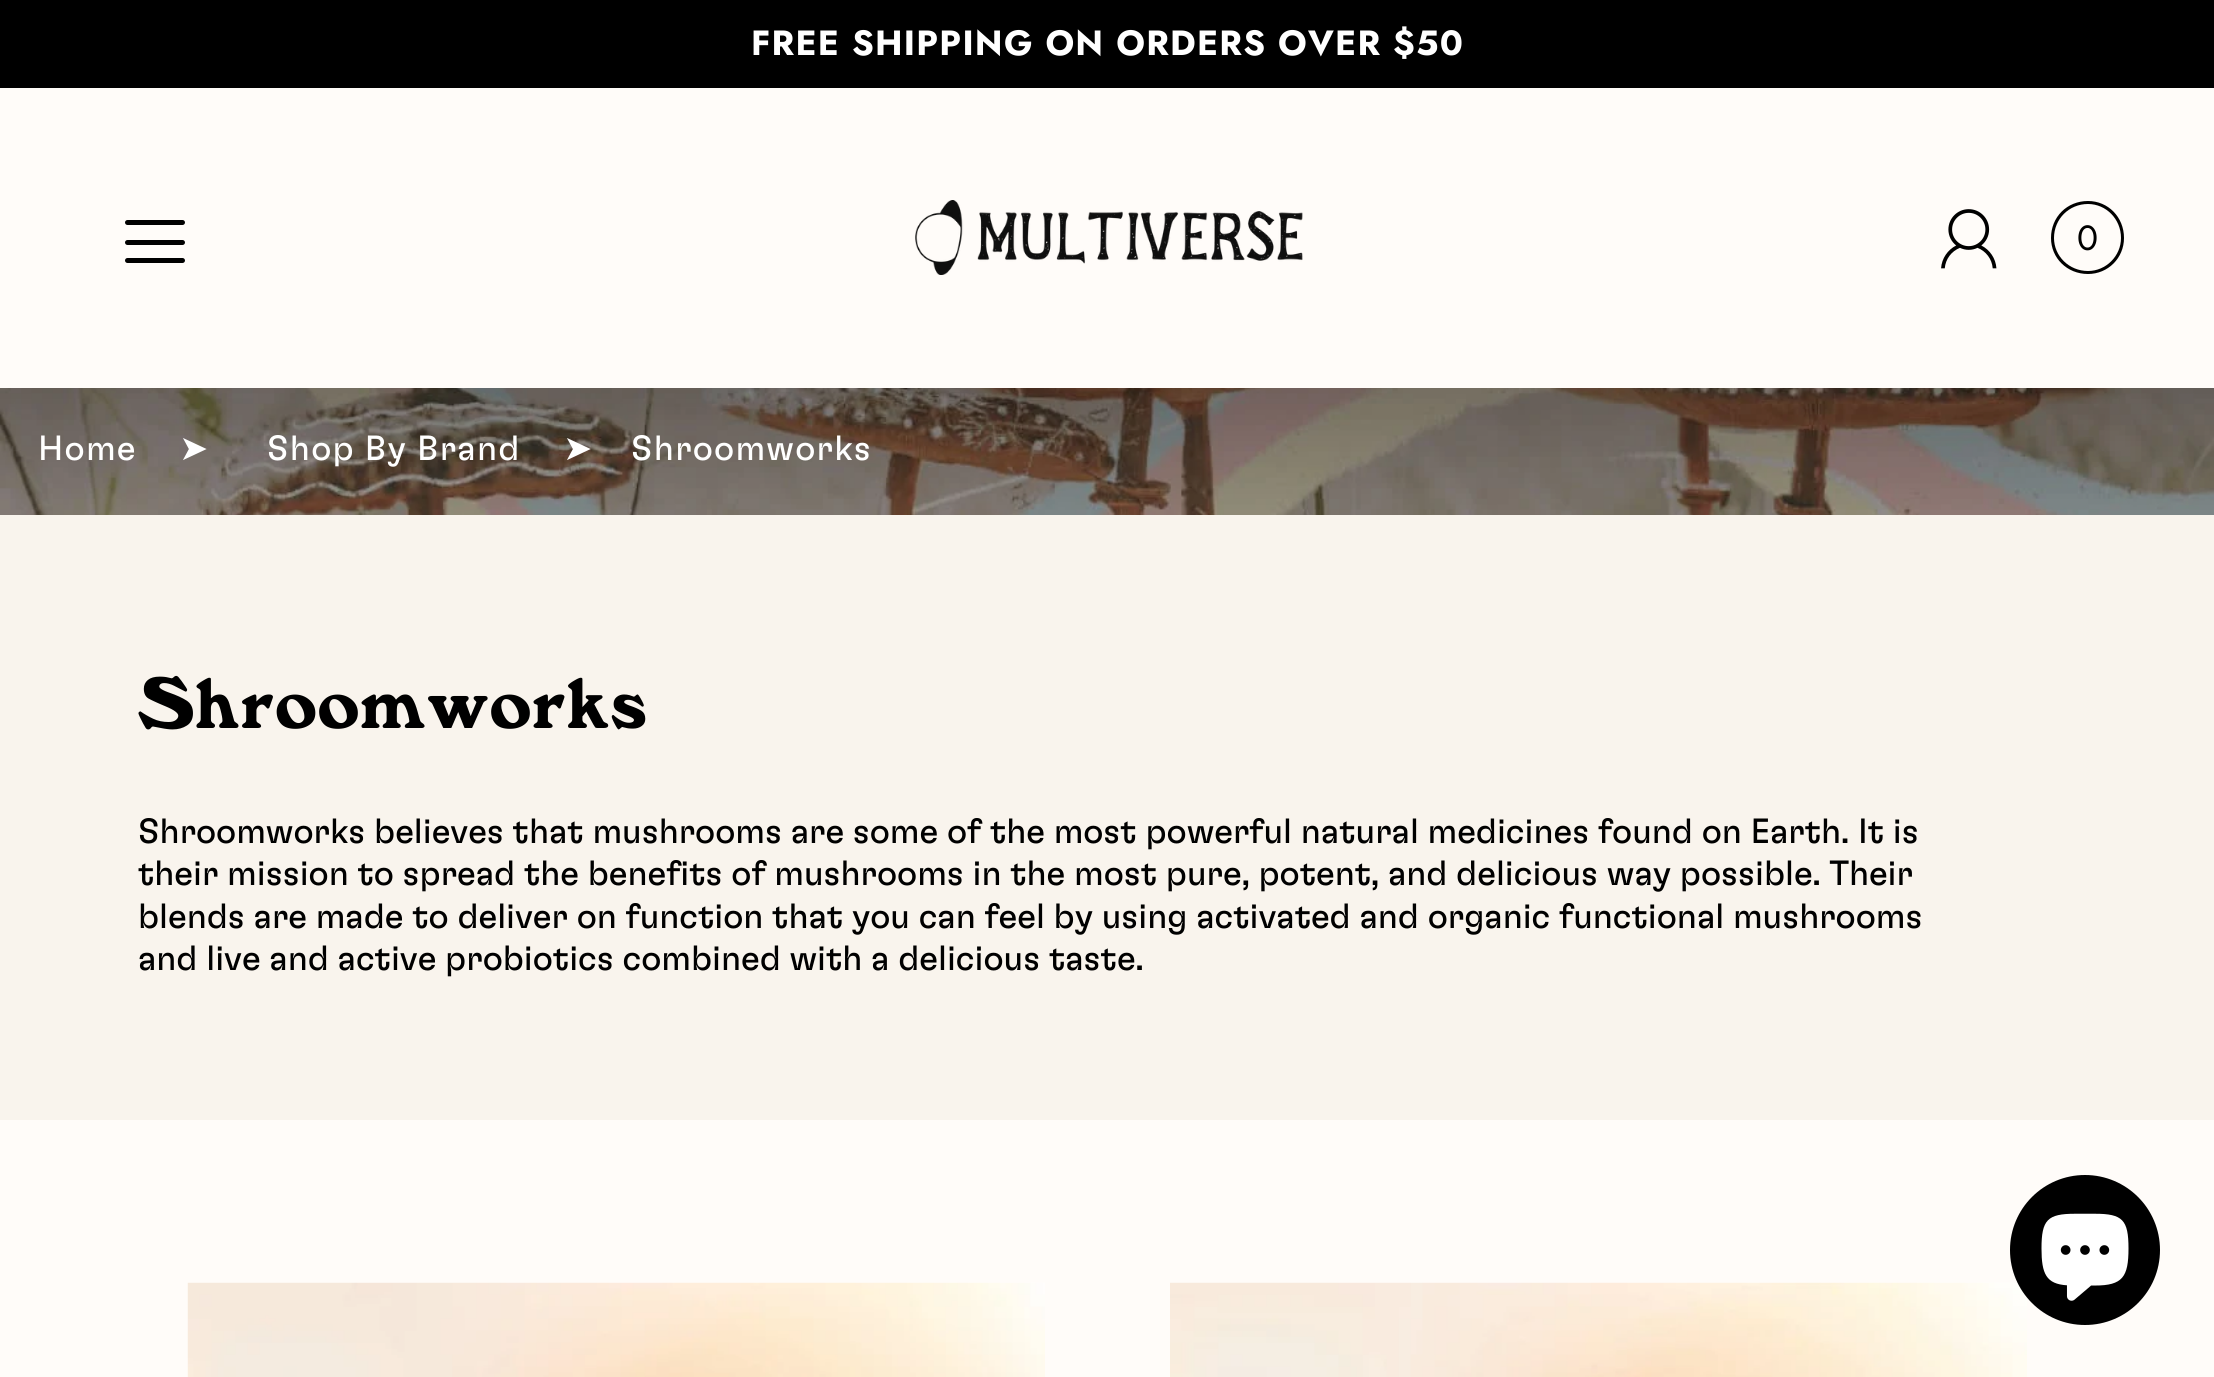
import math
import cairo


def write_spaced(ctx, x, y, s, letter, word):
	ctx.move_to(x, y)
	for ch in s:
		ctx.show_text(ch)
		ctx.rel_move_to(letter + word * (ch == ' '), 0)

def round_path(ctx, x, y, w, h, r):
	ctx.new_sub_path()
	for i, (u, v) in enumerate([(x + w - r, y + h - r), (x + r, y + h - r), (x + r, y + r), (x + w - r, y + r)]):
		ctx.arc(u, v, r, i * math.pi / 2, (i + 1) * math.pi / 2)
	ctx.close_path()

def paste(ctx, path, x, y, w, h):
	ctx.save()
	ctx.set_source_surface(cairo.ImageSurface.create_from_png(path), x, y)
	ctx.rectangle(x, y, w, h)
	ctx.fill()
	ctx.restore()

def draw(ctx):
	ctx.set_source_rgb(1, 0.988, 0.973)
	ctx.paint()
	ctx.set_source_rgb(0, 0, 0)
	ctx.rectangle(0, 0, 2214, 88)
	ctx.fill()
	ctx.select_font_face('Jost', cairo.FONT_SLANT_NORMAL, cairo.FONT_WEIGHT_BOLD)
	ctx.set_font_size(35)
	ctx.set_source_rgb(1, 1, 1)
	write_spaced(ctx, 751, 55, 'FREE SHIPPING ON ORDERS OVER $50', 1.25, 0)
	paste(ctx, 'media/1.png', 915, 200, 388, 75)
	ctx.set_source_rgb(0, 0, 0)
	round_path(ctx, 125, 240, 60, 5, 2.5)
	ctx.fill()
	round_path(ctx, 125, 220, 60, 5, 2.5)
	ctx.fill()
	round_path(ctx, 125, 258, 60, 5, 2.5)
	ctx.fill()
	paste(ctx, 'media/2.png', 1941, 209, 56, 60)
	ctx.new_path()
	ctx.move_to(2088, 274)
	ctx.curve_to(2067, 274, 2051, 258, 2051, 238)
	ctx.curve_to(2051, 217, 2067, 201, 2088, 201)
	ctx.curve_to(2108, 201, 2124, 217, 2124, 238)
	ctx.curve_to(2124, 258, 2108, 274, 2088, 274)
	ctx.close_path()
	ctx.move_to(2088, 271)
	ctx.curve_to(2106, 271, 2121, 256, 2121, 238)
	ctx.curve_to(2121, 219, 2106, 204, 2088, 204)
	ctx.curve_to(2069, 204, 2054, 219, 2054, 238)
	ctx.curve_to(2054, 256, 2069, 271, 2088, 271)
	ctx.close_path()
	ctx.fill()
	ctx.select_font_face('Jost')
	ctx.move_to(2077, 250)
	ctx.show_text('0')
	paste(ctx, 'media/3.png', 0, 388, 2214, 127)
	ctx.select_font_face('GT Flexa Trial')
	ctx.set_source_rgb(1, 1, 1)
	write_spaced(ctx, 38, 460, 'Home', 1.25, 0)
	ctx.select_font_face('DejaVu Sans')
	write_spaced(ctx, 179, 460, '➤', 1.25, 0)
	ctx.select_font_face('GT Flexa Trial')
	write_spaced(ctx, 267, 460, 'Shop By Brand', 1.25, 0)
	ctx.select_font_face('DejaVu Sans')
	write_spaced(ctx, 563, 460, '➤', 1.25, 0)
	ctx.select_font_face('GT Flexa Trial')
	write_spaced(ctx, 631, 460, 'Shroomworks', 1.25, 0)
	ctx.set_source_rgb(0.976, 0.957, 0.929)
	ctx.rectangle(0, 515, 2214, 605)
	ctx.fill()
	ctx.select_font_face('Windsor')
	ctx.set_font_size(75)
	ctx.set_source_rgb(0, 0, 0)
	write_spaced(ctx, 138, 728, 'Shroomworks', 1.25, 0)
	ctx.select_font_face('GT Flexa Trial')
	ctx.set_font_size(35)
	for x, y, s in [
		(138, 843, 'Shroomworks believes that mushrooms are some of the most powerful natural medicines found on Earth. It is'),
		(138, 885, 'their mission to spread the benefits of mushrooms in the most pure, potent, and delicious way possible. Their'),
		(138, 928, 'blends are made to deliver on function that you can feel by using activated and organic functional mushrooms'),
		(138, 970, 'and live and active probiotics combined with a delicious taste.'),
	]:
		ctx.move_to(x, y)
		ctx.show_text(s)
	paste(ctx, 'media/4.png', 187, 1282, 858, 95)
	paste(ctx, 'media/5.png', 1170, 1282, 857, 95)
	ctx.arc(2085, 1250, 75, 0, 2 * math.pi)
	ctx.fill()
	paste(ctx, 'media/6.png', 2041, 1213, 88, 88)


surface = cairo.ImageSurface(cairo.FORMAT_RGB24, 2214, 1377)
ctx = cairo.Context(surface)
options = cairo.FontOptions()
options.set_hint_metrics(cairo.HINT_METRICS_OFF)
options.set_hint_style(cairo.HINT_STYLE_NONE)
ctx.set_font_options(options)
ctx.set_miter_limit(4)
draw(ctx)
surface.write_to_png('image.png')
